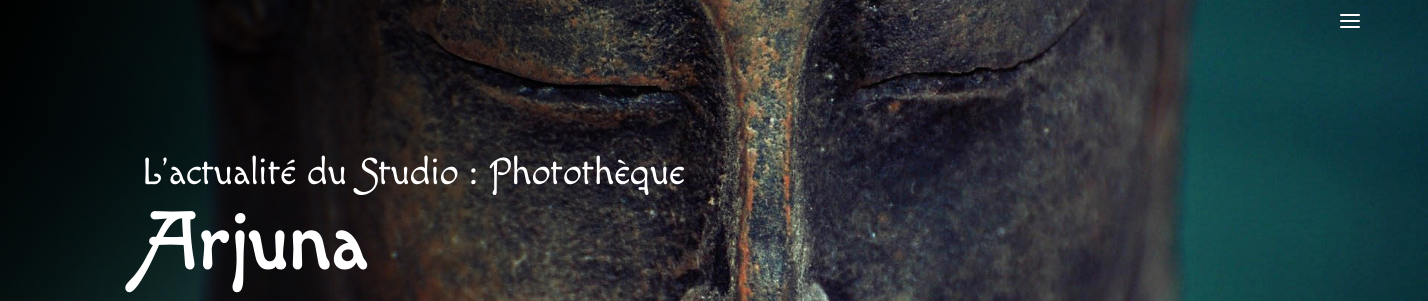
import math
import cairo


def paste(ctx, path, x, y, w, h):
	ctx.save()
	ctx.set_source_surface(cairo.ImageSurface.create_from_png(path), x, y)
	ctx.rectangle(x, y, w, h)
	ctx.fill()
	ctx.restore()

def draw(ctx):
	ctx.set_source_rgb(1, 1, 1)
	ctx.paint()
	paste(ctx, 'media/2.png', 0, 0, 1428, 301)
	paste(ctx, 'media/1.png', 1340, 14, 20, 14)
	ctx.select_font_face('Macondo Swash Caps')
	ctx.set_font_size(38)
	ctx.set_source_rgb(1, 1, 1)
	ctx.move_to(143, 184)
	ctx.show_text('L\'actualité du Studio : Photothèque')
	ctx.select_font_face('Macondo Swash Caps', cairo.FONT_SLANT_NORMAL, cairo.FONT_WEIGHT_BOLD)
	ctx.set_font_size(80)
	ctx.move_to(143, 269)
	ctx.show_text('Arjuna')


surface = cairo.ImageSurface(cairo.FORMAT_RGB24, 1428, 301)
ctx = cairo.Context(surface)
options = cairo.FontOptions()
options.set_hint_metrics(cairo.HINT_METRICS_OFF)
options.set_hint_style(cairo.HINT_STYLE_NONE)
ctx.set_font_options(options)
ctx.set_miter_limit(4)
draw(ctx)
surface.write_to_png('image.png')
